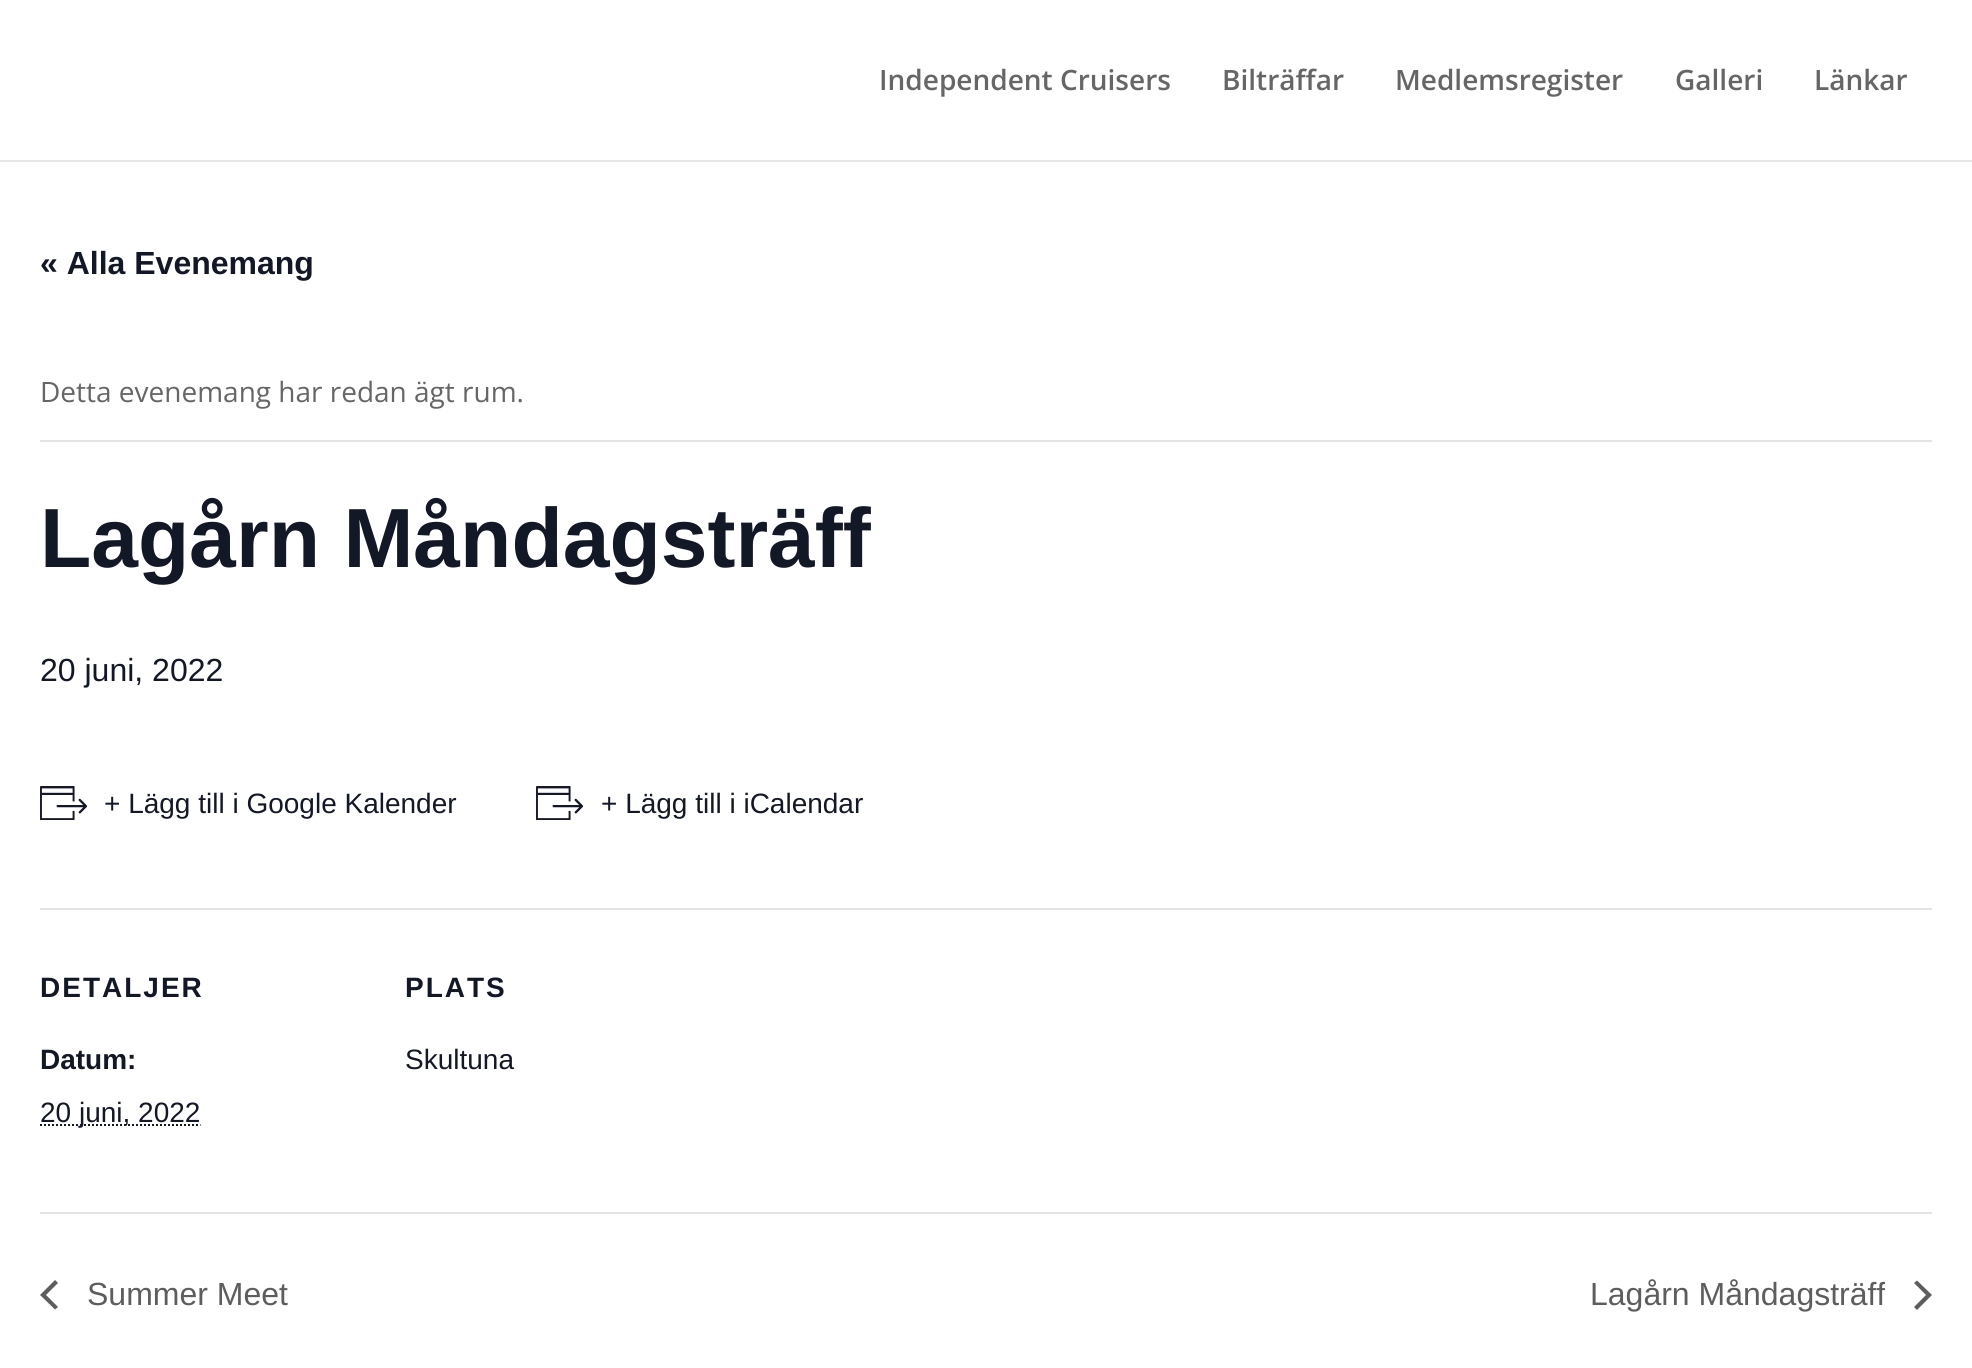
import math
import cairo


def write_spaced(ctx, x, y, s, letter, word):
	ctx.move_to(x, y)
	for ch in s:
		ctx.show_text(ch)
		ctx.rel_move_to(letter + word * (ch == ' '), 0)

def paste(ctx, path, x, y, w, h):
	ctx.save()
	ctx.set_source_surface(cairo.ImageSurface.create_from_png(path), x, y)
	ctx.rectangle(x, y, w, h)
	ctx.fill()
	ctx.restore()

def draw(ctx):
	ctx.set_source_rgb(1, 1, 1)
	ctx.paint()
	ctx.set_source_rgb(0.902, 0.902, 0.902)
	ctx.rectangle(0, 160, 1972, 2)
	ctx.fill()
	ctx.select_font_face('Open Sans SemiBold')
	ctx.set_font_size(28)
	ctx.set_source_rgb(0.4, 0.4, 0.4)
	for x, y, s in [
		(879, 90, 'Independent Cruisers'),
		(1222, 90, 'Bilträffar'),
		(1395, 90, 'Medlemsregister'),
		(1675, 90, 'Galleri'),
		(1814, 90, 'Länkar'),
	]:
		ctx.move_to(x, y)
		ctx.show_text(s)
	ctx.select_font_face('Liberation Sans', cairo.FONT_SLANT_NORMAL, cairo.FONT_WEIGHT_BOLD)
	ctx.set_font_size(32)
	ctx.set_source_rgb(0.078, 0.094, 0.153)
	ctx.move_to(40, 274)
	ctx.show_text('« Alla Evenemang')
	ctx.set_source_rgb(0.894, 0.894, 0.894)
	ctx.rectangle(40, 440, 1892, 2)
	ctx.fill()
	ctx.select_font_face('Open Sans')
	ctx.set_font_size(28)
	ctx.set_source_rgb(0.4, 0.4, 0.4)
	ctx.move_to(40, 402)
	ctx.show_text('Detta evenemang har redan ägt rum.')
	ctx.select_font_face('Liberation Sans', cairo.FONT_SLANT_NORMAL, cairo.FONT_WEIGHT_BOLD)
	ctx.set_font_size(84)
	ctx.set_source_rgb(0.078, 0.094, 0.153)
	ctx.move_to(40, 567)
	ctx.show_text('Lagårn Måndagsträff')
	ctx.select_font_face('Liberation Sans')
	ctx.set_font_size(32)
	ctx.move_to(40, 681)
	ctx.show_text('20 juni, 2022')
	paste(ctx, 'media/1.png', 40, 786, 48, 34)
	ctx.set_font_size(28)
	ctx.move_to(104, 813)
	ctx.show_text('+ Lägg till i Google Kalender')
	paste(ctx, 'media/1.png', 536, 786, 48, 34)
	ctx.move_to(601, 813)
	ctx.show_text('+ Lägg till i iCalendar')
	ctx.set_source_rgb(0.894, 0.894, 0.894)
	ctx.rectangle(40, 908, 1892, 2)
	ctx.fill()
	ctx.select_font_face('Liberation Sans', cairo.FONT_SLANT_NORMAL, cairo.FONT_WEIGHT_BOLD)
	ctx.set_source_rgb(0.078, 0.094, 0.153)
	write_spaced(ctx, 40, 997, 'DETALJER', 2, 0)
	ctx.move_to(40, 1069)
	ctx.show_text('Datum:')
	ctx.new_path()
	ctx.move_to(40, 1125)
	ctx.line_to(200.5, 1125)
	ctx.set_dash([2, 2])
	ctx.stroke()
	ctx.select_font_face('Liberation Sans')
	ctx.move_to(40, 1122)
	ctx.show_text('20 juni, 2022')
	ctx.select_font_face('Liberation Sans', cairo.FONT_SLANT_NORMAL, cairo.FONT_WEIGHT_BOLD)
	write_spaced(ctx, 405, 997, 'PLATS', 2, 0)
	ctx.select_font_face('Liberation Sans')
	ctx.move_to(405, 1069)
	ctx.show_text('Skultuna')
	ctx.set_source_rgb(0.894, 0.894, 0.894)
	ctx.rectangle(40, 1212, 1892, 2)
	ctx.fill()
	ctx.set_source_rgb(0.365, 0.365, 0.365)
	ctx.new_path()
	ctx.move_to(58, 1307)
	ctx.line_to(55, 1309.5)
	ctx.line_to(40, 1295)
	ctx.line_to(55, 1280)
	ctx.line_to(58, 1283)
	ctx.line_to(46, 1295)
	ctx.close_path()
	ctx.fill()
	ctx.set_font_size(32)
	ctx.move_to(87, 1305)
	ctx.show_text('Summer Meet')
	ctx.move_to(1590, 1305)
	ctx.show_text('Lagårn Måndagsträff')
	ctx.new_path()
	ctx.move_to(1914, 1283)
	ctx.line_to(1917, 1280.5)
	ctx.line_to(1932, 1295)
	ctx.line_to(1917, 1310)
	ctx.line_to(1914, 1307)
	ctx.line_to(1926, 1295)
	ctx.close_path()
	ctx.fill()


surface = cairo.ImageSurface(cairo.FORMAT_RGB24, 1972, 1368)
ctx = cairo.Context(surface)
options = cairo.FontOptions()
options.set_hint_metrics(cairo.HINT_METRICS_OFF)
options.set_hint_style(cairo.HINT_STYLE_NONE)
ctx.set_font_options(options)
ctx.set_miter_limit(4)
draw(ctx)
surface.write_to_png('image.png')
